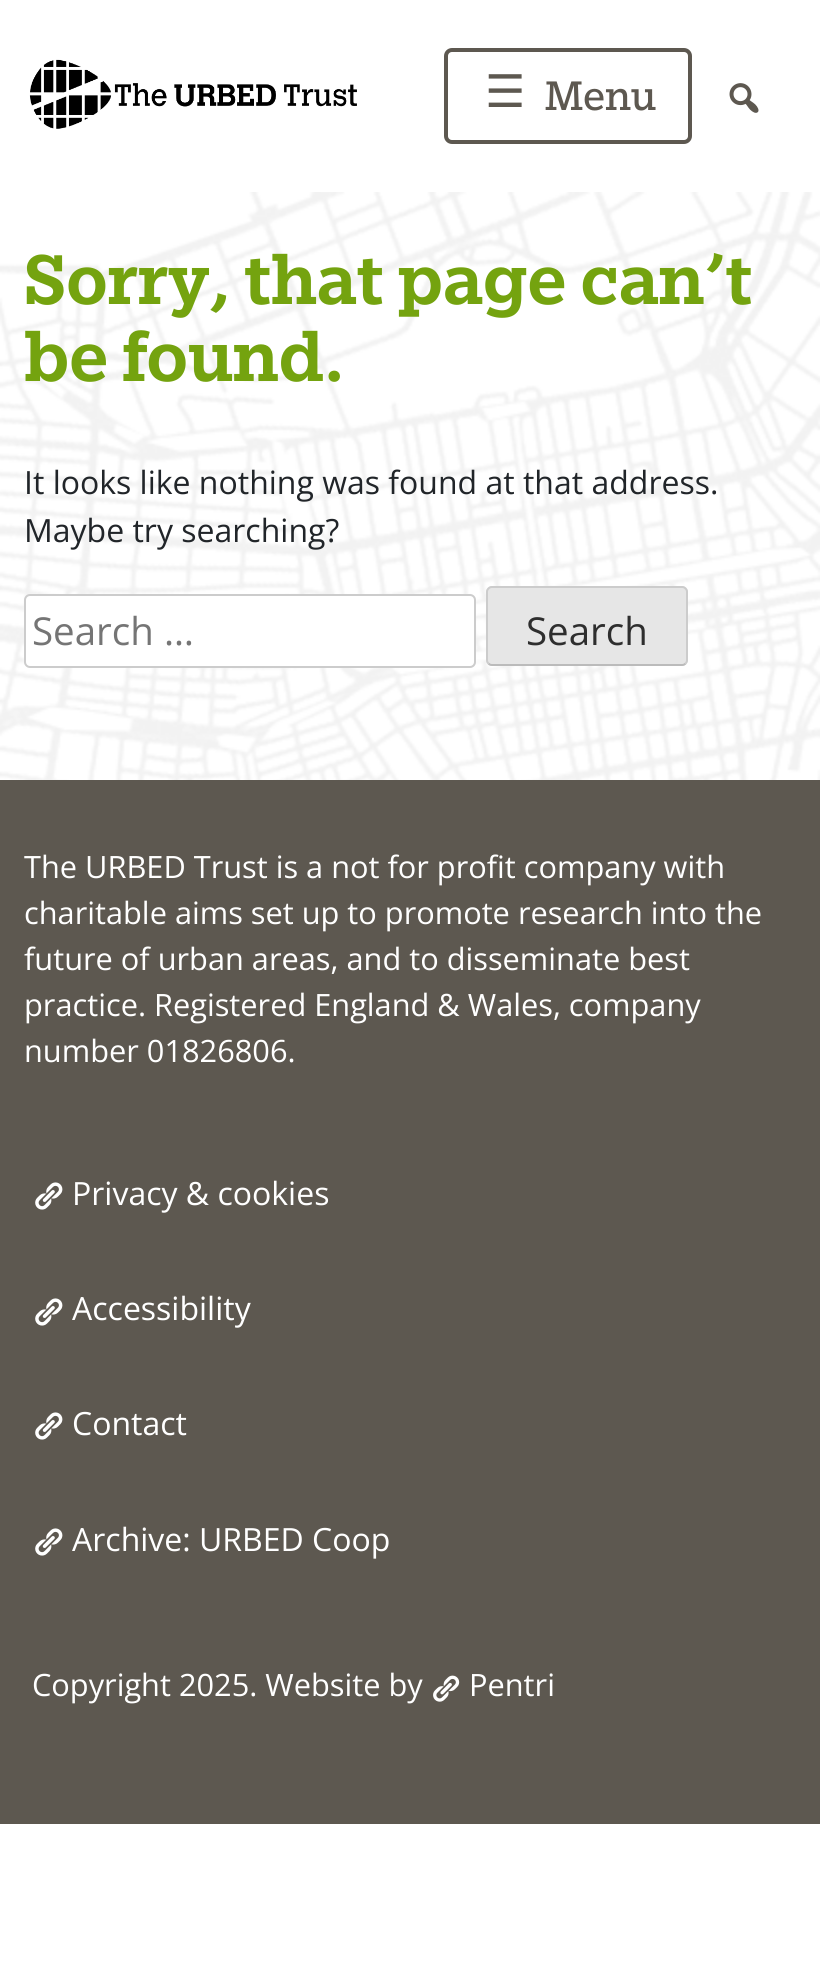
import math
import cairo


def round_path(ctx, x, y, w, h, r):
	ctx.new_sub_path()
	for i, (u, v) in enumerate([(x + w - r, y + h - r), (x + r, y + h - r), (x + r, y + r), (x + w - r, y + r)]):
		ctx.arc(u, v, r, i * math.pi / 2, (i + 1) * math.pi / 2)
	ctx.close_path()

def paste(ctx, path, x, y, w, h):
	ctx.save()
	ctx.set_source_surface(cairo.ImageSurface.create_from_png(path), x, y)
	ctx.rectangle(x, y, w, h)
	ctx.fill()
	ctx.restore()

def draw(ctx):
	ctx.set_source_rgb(1, 1, 1)
	ctx.paint()
	paste(ctx, 'media/1.png', 29, 59, 328, 70)
	round_path(ctx, 446, 50, 244, 92, 6)
	ctx.set_source_rgb(0.365, 0.345, 0.314)
	ctx.set_line_width(4)
	ctx.stroke()
	ctx.select_font_face('DejaVu Sans')
	ctx.set_font_size(45)
	ctx.move_to(485, 107)
	ctx.show_text('☰')
	ctx.select_font_face('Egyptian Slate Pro')
	ctx.move_to(545, 110)
	ctx.show_text('Menu')
	paste(ctx, 'media/2.png', 729, 83, 30, 30)
	paste(ctx, 'media/3.png', 0, 192, 820, 588)
	ctx.select_font_face('Egyptian Slate Pro Medium')
	ctx.set_font_size(76.75)
	ctx.set_source_rgb(0.455, 0.639, 0.059)
	ctx.move_to(24, 304)
	ctx.show_text('Sorry, that page can’t')
	ctx.move_to(24, 381)
	ctx.show_text('be found.')
	ctx.select_font_face('Open Sans')
	ctx.set_font_size(32)
	ctx.set_source_rgb(0.129, 0.145, 0.161)
	ctx.move_to(24, 494)
	ctx.show_text('It looks like nothing was found at that address.')
	ctx.move_to(24, 542)
	ctx.show_text('Maybe try searching?')
	ctx.set_source_rgb(1, 1, 1)
	round_path(ctx, 25, 595, 450, 72, 5)
	ctx.fill_preserve()
	ctx.set_source_rgb(0.8, 0.8, 0.8)
	ctx.set_line_width(2)
	ctx.stroke()
	ctx.set_font_size(38.5)
	ctx.set_source_rgb(0.459, 0.459, 0.459)
	ctx.move_to(32, 645)
	ctx.show_text('Search …')
	ctx.set_source_rgb(0.902, 0.902, 0.902)
	round_path(ctx, 486, 586, 202, 80, 6)
	ctx.fill()
	ctx.new_path()
	ctx.move_to(685.5, 663.5)
	ctx.curve_to(684.5, 664.5, 683.5, 665, 682, 665)
	ctx.line_to(492, 665)
	ctx.curve_to(490.5, 665, 489.5, 664.5, 488.5, 663.5)
	ctx.set_source_rgb(0.733, 0.733, 0.733)
	ctx.stroke()
	ctx.new_path()
	ctx.move_to(488.5, 663.5)
	ctx.curve_to(487.5, 662.5, 487, 661.5, 487, 660)
	ctx.line_to(487, 592)
	ctx.curve_to(487, 590.5, 487.5, 589.5, 488.5, 588.5)
	ctx.curve_to(489.5, 587.5, 490.5, 587, 492, 587)
	ctx.line_to(682, 587)
	ctx.curve_to(683.5, 587, 684.5, 587.5, 685.5, 588.5)
	ctx.curve_to(686.5, 589.5, 687, 590.5, 687, 592)
	ctx.line_to(687, 660)
	ctx.curve_to(687, 661.5, 686.5, 662.5, 685.5, 663.5)
	ctx.set_source_rgb(0.8, 0.8, 0.8)
	ctx.stroke()
	ctx.set_source_rgb(0.18, 0.18, 0.18)
	ctx.move_to(526, 645)
	ctx.show_text('Search')
	ctx.set_source_rgb(0.365, 0.345, 0.314)
	ctx.rectangle(0, 780, 820, 1044)
	ctx.fill()
	ctx.set_font_size(30.75)
	ctx.set_source_rgb(1, 1, 1)
	for x, y, s in [
		(24, 878, 'The URBED Trust is a not for profit company with'),
		(24, 924, 'charitable aims set up to promote research into the'),
		(24, 970, 'future of urban areas, and to disseminate best'),
		(24, 1016, 'practice. Registered England & Wales, company'),
		(24, 1062, 'number 01826806.'),
	]:
		ctx.move_to(x, y)
		ctx.show_text(s)
	paste(ctx, 'media/4.png', 35, 1182, 28, 28)
	ctx.set_font_size(32)
	ctx.move_to(72, 1205)
	ctx.show_text('Privacy & cookies')
	paste(ctx, 'media/4.png', 35, 1298, 28, 28)
	ctx.move_to(72, 1320)
	ctx.show_text('Accessibility')
	paste(ctx, 'media/4.png', 35, 1412, 28, 28)
	ctx.move_to(72, 1435)
	ctx.show_text('Contact')
	paste(ctx, 'media/4.png', 35, 1528, 28, 28)
	ctx.move_to(72, 1551)
	ctx.show_text('Archive: URBED Coop')
	ctx.set_font_size(30.75)
	ctx.move_to(32, 1696)
	ctx.show_text('Copyright 2025. Website by')
	paste(ctx, 'media/5.png', 433, 1675, 27, 27)
	ctx.move_to(469, 1696)
	ctx.show_text('Pentri')


surface = cairo.ImageSurface(cairo.FORMAT_RGB24, 820, 1964)
ctx = cairo.Context(surface)
options = cairo.FontOptions()
options.set_hint_metrics(cairo.HINT_METRICS_OFF)
options.set_hint_style(cairo.HINT_STYLE_NONE)
ctx.set_font_options(options)
ctx.set_miter_limit(4)
draw(ctx)
surface.write_to_png('image.png')
